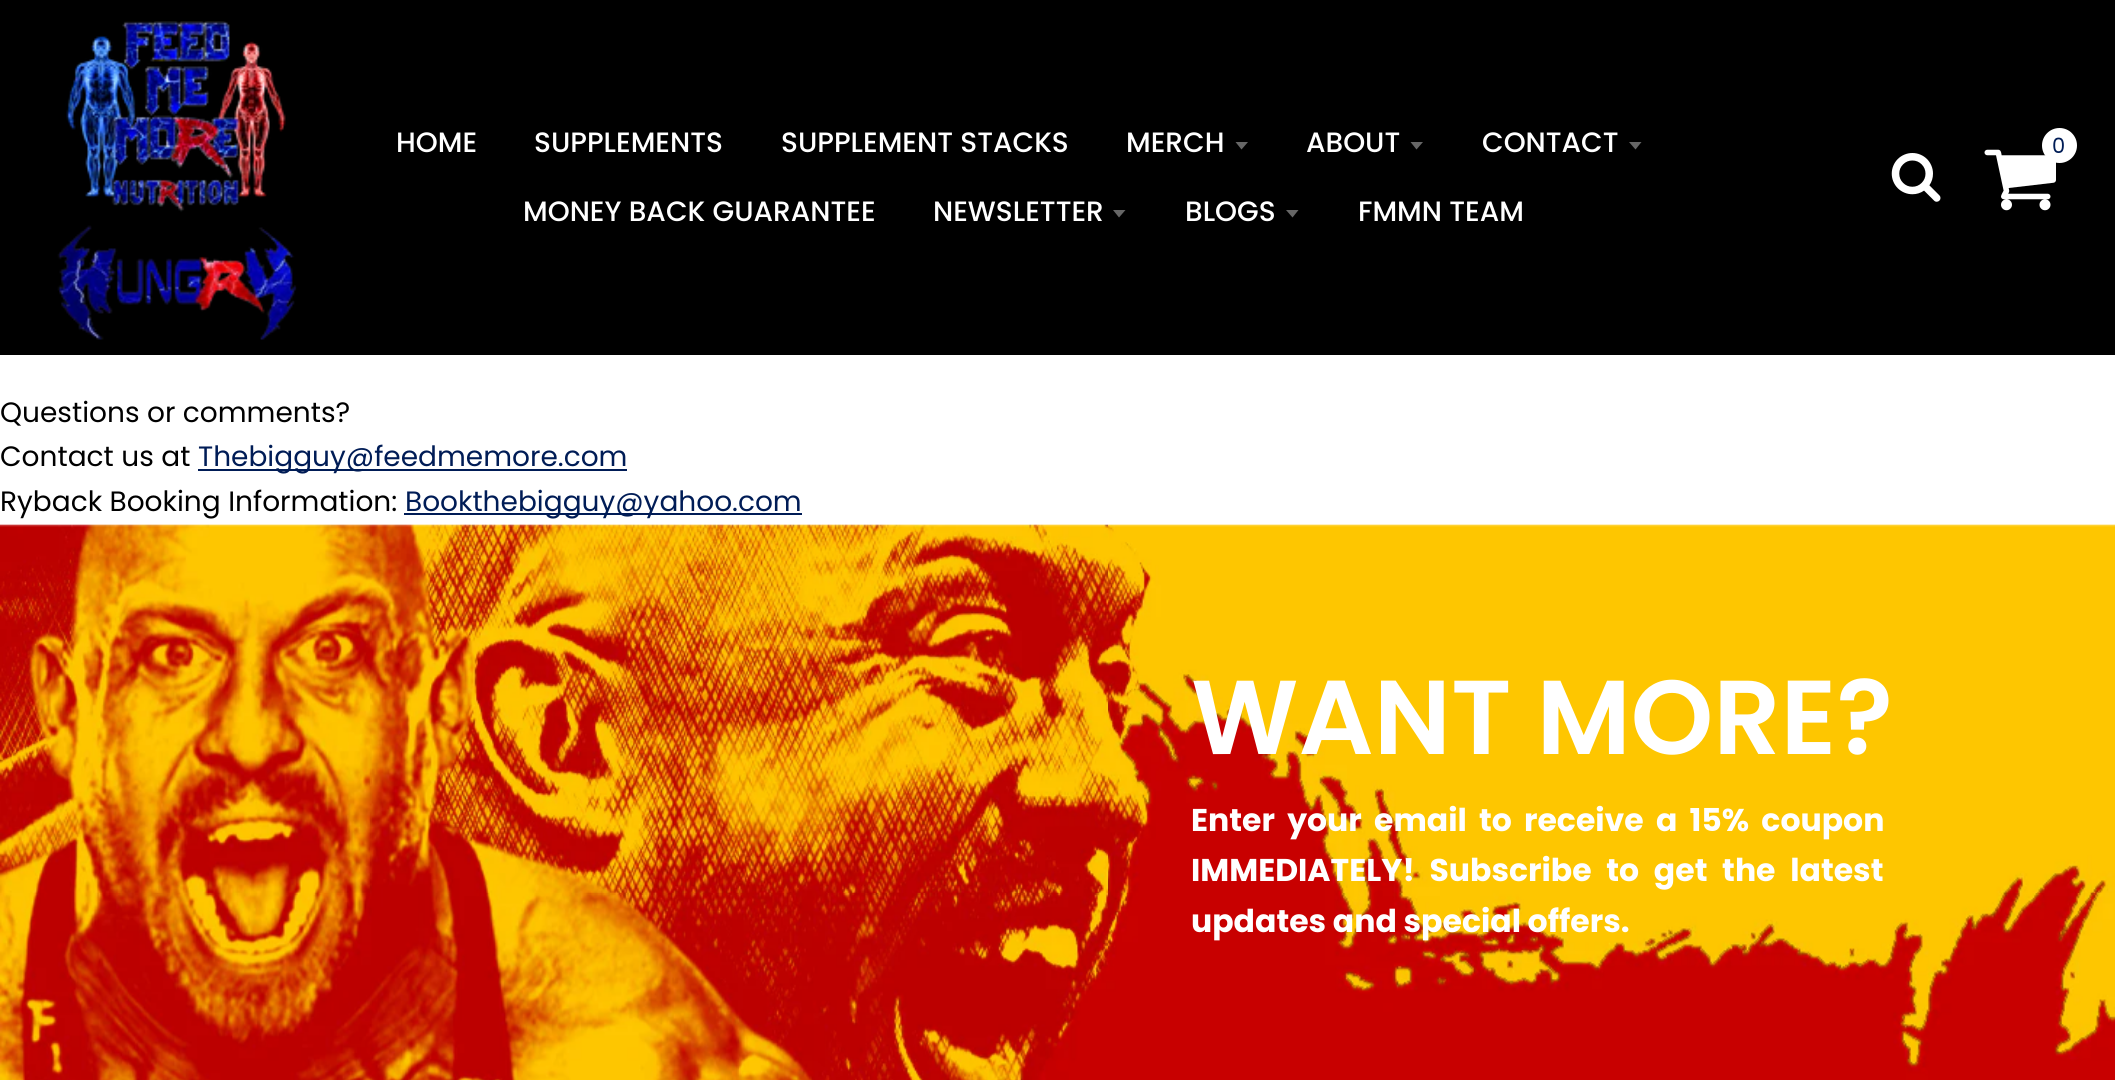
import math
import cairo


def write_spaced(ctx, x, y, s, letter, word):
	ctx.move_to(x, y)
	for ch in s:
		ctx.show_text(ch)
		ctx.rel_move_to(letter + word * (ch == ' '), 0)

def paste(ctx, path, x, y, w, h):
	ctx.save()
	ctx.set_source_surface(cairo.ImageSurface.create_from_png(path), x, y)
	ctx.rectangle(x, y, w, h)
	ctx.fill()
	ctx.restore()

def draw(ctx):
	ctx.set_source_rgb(1, 1, 1)
	ctx.paint()
	ctx.set_source_rgb(0, 0, 0)
	ctx.rectangle(0, 0, 2115, 355)
	ctx.fill()
	paste(ctx, 'media/1.png', 57, 21, 240, 319)
	ctx.select_font_face('Poppins Medium')
	ctx.set_font_size(28)
	ctx.set_source_rgb(1, 1, 1)
	for x, y, s in [
		(396, 152, 'HOME'),
		(534, 152, 'SUPPLEMENTS'),
		(781, 152, 'SUPPLEMENT STACKS'),
		(1126, 152, 'MERCH'),
	]:
		ctx.move_to(x, y)
		ctx.show_text(s)
	ctx.set_source_rgb(0.4, 0.4, 0.4)
	ctx.new_path()
	ctx.move_to(1235.5, 142)
	ctx.line_to(1241.5, 149.5)
	ctx.line_to(1248, 142)
	ctx.close_path()
	ctx.fill()
	ctx.set_source_rgb(1, 1, 1)
	ctx.move_to(1306, 152)
	ctx.show_text('ABOUT')
	ctx.set_source_rgb(0.4, 0.4, 0.4)
	ctx.new_path()
	ctx.move_to(1410.5, 142)
	ctx.line_to(1416.5, 149.5)
	ctx.line_to(1423, 142)
	ctx.close_path()
	ctx.fill()
	ctx.set_source_rgb(1, 1, 1)
	ctx.move_to(1482, 152)
	ctx.show_text('CONTACT')
	ctx.set_source_rgb(0.4, 0.4, 0.4)
	ctx.new_path()
	ctx.move_to(1629, 142)
	ctx.line_to(1635.5, 149.5)
	ctx.line_to(1641.5, 142)
	ctx.close_path()
	ctx.fill()
	ctx.set_source_rgb(1, 1, 1)
	ctx.move_to(523, 221)
	ctx.show_text('MONEY BACK GUARANTEE')
	ctx.move_to(933, 221)
	ctx.show_text('NEWSLETTER')
	ctx.set_source_rgb(0.4, 0.4, 0.4)
	ctx.new_path()
	ctx.move_to(1113, 210)
	ctx.line_to(1119, 217.5)
	ctx.line_to(1125.5, 210)
	ctx.close_path()
	ctx.fill()
	ctx.set_source_rgb(1, 1, 1)
	ctx.move_to(1185, 221)
	ctx.show_text('BLOGS')
	ctx.set_source_rgb(0.4, 0.4, 0.4)
	ctx.new_path()
	ctx.move_to(1286, 210)
	ctx.line_to(1292.5, 217.5)
	ctx.line_to(1298.5, 210)
	ctx.close_path()
	ctx.fill()
	ctx.set_source_rgb(1, 1, 1)
	ctx.move_to(1358, 221)
	ctx.show_text('FMMN TEAM')
	paste(ctx, 'media/2.png', 1984, 149, 72, 62)
	ctx.arc(2059.5, 145.5, 17.5, 0, 2 * math.pi)
	ctx.fill()
	ctx.select_font_face('Poppins')
	ctx.set_font_size(21)
	ctx.set_source_rgb(0, 0.11, 0.337)
	ctx.move_to(2052, 153)
	ctx.show_text('0')
	paste(ctx, 'media/3.png', 1891, 153, 50, 49)
	ctx.set_font_size(28)
	ctx.set_source_rgb(0, 0, 0)
	ctx.move_to(0, 422)
	ctx.show_text('Questions or comments?')
	ctx.move_to(0, 466)
	ctx.show_text('Contact us at')
	ctx.set_source_rgb(0, 0.11, 0.337)
	ctx.rectangle(198, 469, 429, 2)
	ctx.fill()
	ctx.move_to(198, 466)
	ctx.show_text('Thebigguy@feedmemore.com')
	ctx.set_source_rgb(0, 0, 0)
	ctx.move_to(0, 511)
	ctx.show_text('Ryback Booking Information:')
	ctx.set_source_rgb(0, 0.11, 0.337)
	ctx.rectangle(404, 513, 398, 2)
	ctx.fill()
	ctx.move_to(405, 511)
	ctx.show_text('Bookthebigguy@yahoo.com')
	paste(ctx, 'media/4.png', 0, 524, 2115, 556)
	ctx.select_font_face('Poppins SemiBold')
	ctx.set_font_size(105)
	ctx.set_source_rgb(1, 1, 1)
	ctx.move_to(1191, 754)
	ctx.show_text('WANT MORE?')
	ctx.select_font_face('Poppins', cairo.FONT_SLANT_NORMAL, cairo.FONT_WEIGHT_BOLD)
	ctx.set_font_size(31.5)
	write_spaced(ctx, 1191, 831, 'Enter your email to receive a 15% coupon', 0, 5.5)
	write_spaced(ctx, 1191, 881, 'IMMEDIATELY! Subscribe to get the latest', 0, 8)
	ctx.move_to(1191, 932)
	ctx.show_text('updates and special offers.')


surface = cairo.ImageSurface(cairo.FORMAT_RGB24, 2115, 1080)
ctx = cairo.Context(surface)
options = cairo.FontOptions()
options.set_hint_metrics(cairo.HINT_METRICS_OFF)
options.set_hint_style(cairo.HINT_STYLE_NONE)
ctx.set_font_options(options)
ctx.set_miter_limit(4)
draw(ctx)
surface.write_to_png('image.png')
